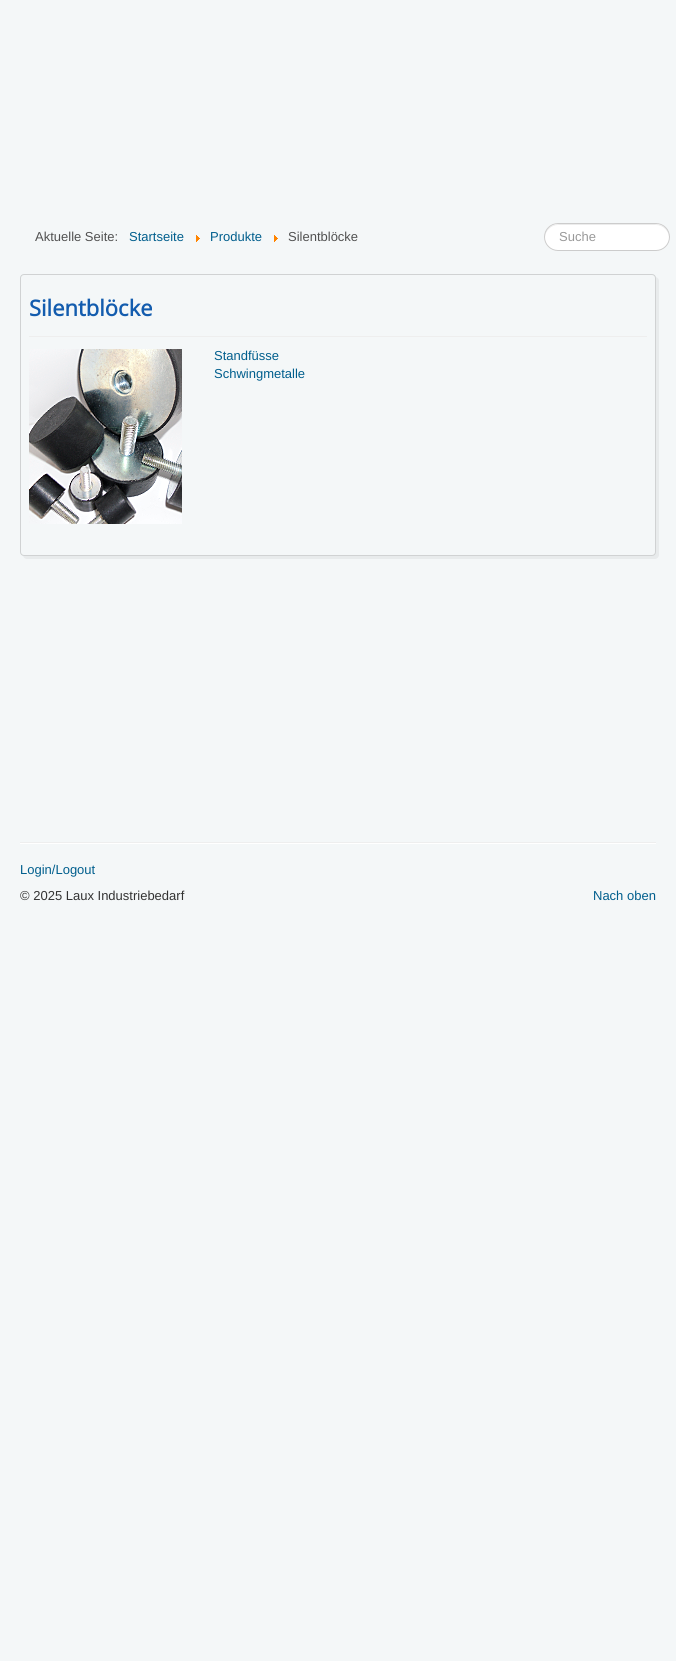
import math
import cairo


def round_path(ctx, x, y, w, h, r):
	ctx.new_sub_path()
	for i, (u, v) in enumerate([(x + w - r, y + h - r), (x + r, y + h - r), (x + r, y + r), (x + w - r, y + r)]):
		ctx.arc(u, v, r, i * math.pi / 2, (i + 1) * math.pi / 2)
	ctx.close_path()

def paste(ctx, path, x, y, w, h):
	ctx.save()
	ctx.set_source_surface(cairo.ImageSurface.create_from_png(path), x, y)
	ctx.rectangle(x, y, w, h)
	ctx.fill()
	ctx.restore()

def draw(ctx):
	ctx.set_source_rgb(0.957, 0.965, 0.969)
	ctx.paint()
	ctx.select_font_face('Liberation Sans')
	ctx.set_font_size(13)
	ctx.set_source_rgb(0.318, 0.318, 0.318)
	ctx.move_to(35, 241)
	ctx.show_text('Aktuelle Seite:')
	ctx.set_source_rgb(0, 0.369, 0.553)
	ctx.move_to(129, 241)
	ctx.show_text('Startseite')
	paste(ctx, 'media/1.png', 196, 235, 4, 7)
	ctx.move_to(210, 241)
	ctx.show_text('Produkte')
	paste(ctx, 'media/1.png', 274, 235, 4, 7)
	ctx.set_source_rgb(0.318, 0.318, 0.318)
	ctx.move_to(288, 241)
	ctx.show_text('Silentblöcke')
	ctx.set_source_rgb(1, 1, 1)
	round_path(ctx, 544, 223, 126, 28, 14)
	ctx.fill()
	ctx.set_source_rgb(0.925, 0.925, 0.925)
	ctx.new_path()
	ctx.move_to(558, 225)
	ctx.line_to(656, 225)
	ctx.curve_to(663, 225, 669, 231, 669, 238)
	ctx.curve_to(670, 221, 650, 224, 640, 224)
	ctx.line_to(574, 224)
	ctx.curve_to(564, 224, 544, 221, 545, 238)
	ctx.curve_to(545, 231, 551, 225, 558, 225)
	ctx.close_path()
	ctx.fill()
	round_path(ctx, 544.5, 223.5, 125, 27, 13.5)
	ctx.set_source_rgb(0.8, 0.8, 0.8)
	ctx.set_line_width(1)
	ctx.stroke()
	ctx.set_source_rgb(0.6, 0.6, 0.6)
	ctx.move_to(559, 241)
	ctx.show_text('Suche')
	ctx.set_source_rgb(0.91, 0.918, 0.922)
	ctx.new_path()
	ctx.move_to(23, 556)
	ctx.curve_to(24, 558, 25, 559, 27, 559)
	ctx.line_to(655, 559)
	ctx.curve_to(657, 559, 659, 557, 659, 555)
	ctx.line_to(659, 281)
	ctx.curve_to(659, 279, 658, 278, 656, 277)
	ctx.line_to(656, 552)
	ctx.curve_to(656, 554, 654, 556, 652, 556)
	ctx.close_path()
	ctx.fill()
	round_path(ctx, 20.5, 274.5, 635, 281, 3.5)
	ctx.set_source_rgba(0, 0, 0, 0.15)
	ctx.stroke()
	ctx.set_source_rgb(0.933, 0.933, 0.933)
	ctx.rectangle(29, 336, 618, 1)
	ctx.fill()
	ctx.select_font_face('Open Sans', cairo.FONT_SLANT_NORMAL, cairo.FONT_WEIGHT_BOLD)
	ctx.set_font_size(22)
	ctx.set_source_rgb(0.075, 0.361, 0.682)
	ctx.move_to(29, 316)
	ctx.show_text('Silentblöcke')
	paste(ctx, 'media/2.png', 29, 349, 153, 175)
	ctx.select_font_face('Liberation Sans')
	ctx.set_font_size(13)
	ctx.set_source_rgb(0, 0.369, 0.553)
	ctx.move_to(214, 360)
	ctx.show_text('Standfüsse')
	ctx.move_to(214, 378)
	ctx.show_text('Schwingmetalle')
	ctx.set_source_rgb(0.933, 0.933, 0.933)
	ctx.rectangle(20, 842, 636, 1)
	ctx.fill()
	ctx.set_source_rgb(1, 1, 1)
	ctx.rectangle(20, 843, 636, 1)
	ctx.fill()
	ctx.set_source_rgb(0, 0.369, 0.553)
	ctx.move_to(20, 874)
	ctx.show_text('Login/Logout')
	ctx.set_source_rgb(0.2, 0.2, 0.2)
	ctx.move_to(20, 900)
	ctx.show_text('© 2025 Laux Industriebedarf')
	ctx.set_source_rgb(0, 0.369, 0.553)
	ctx.move_to(593, 900)
	ctx.show_text('Nach oben')


surface = cairo.ImageSurface(cairo.FORMAT_RGB24, 676, 1661)
ctx = cairo.Context(surface)
options = cairo.FontOptions()
options.set_hint_metrics(cairo.HINT_METRICS_OFF)
options.set_hint_style(cairo.HINT_STYLE_NONE)
ctx.set_font_options(options)
ctx.set_miter_limit(4)
draw(ctx)
surface.write_to_png('image.png')
